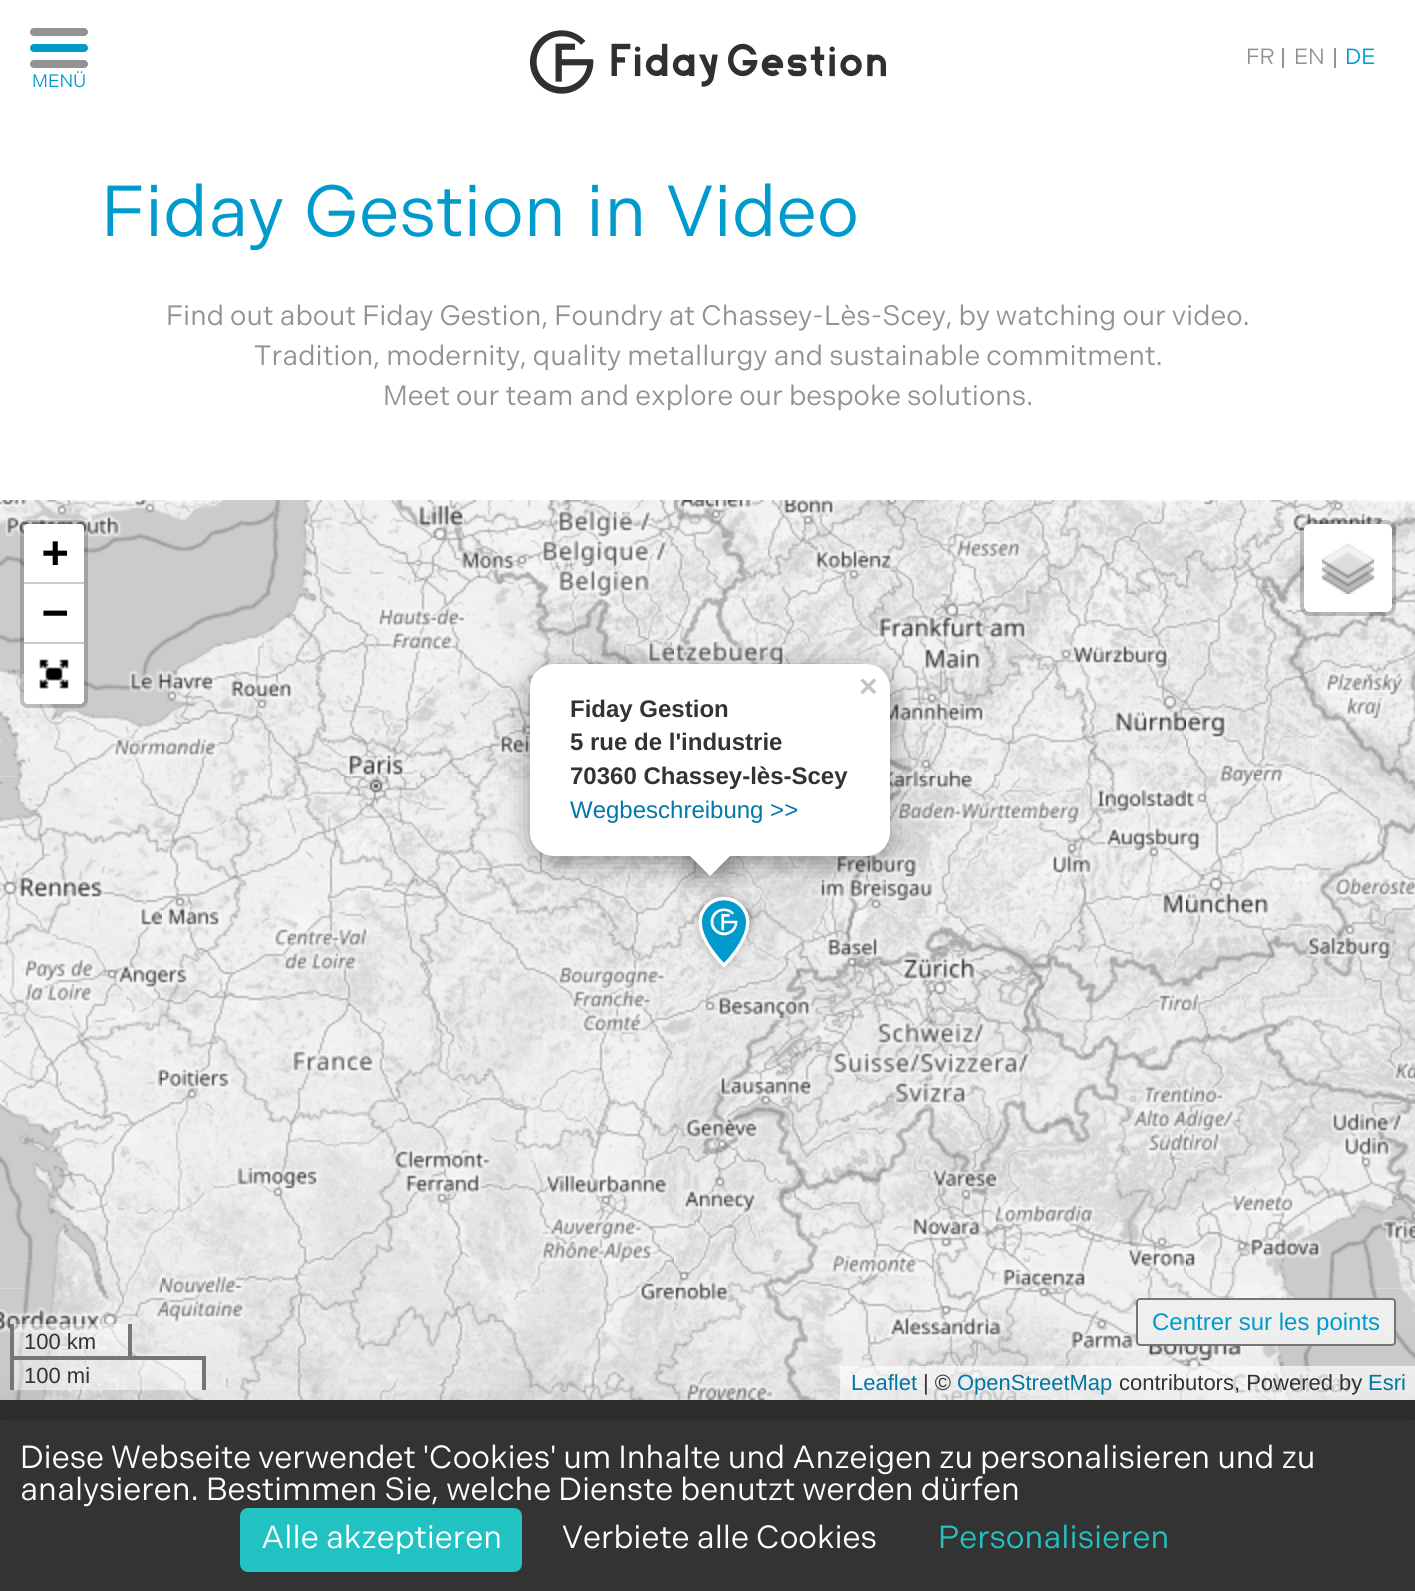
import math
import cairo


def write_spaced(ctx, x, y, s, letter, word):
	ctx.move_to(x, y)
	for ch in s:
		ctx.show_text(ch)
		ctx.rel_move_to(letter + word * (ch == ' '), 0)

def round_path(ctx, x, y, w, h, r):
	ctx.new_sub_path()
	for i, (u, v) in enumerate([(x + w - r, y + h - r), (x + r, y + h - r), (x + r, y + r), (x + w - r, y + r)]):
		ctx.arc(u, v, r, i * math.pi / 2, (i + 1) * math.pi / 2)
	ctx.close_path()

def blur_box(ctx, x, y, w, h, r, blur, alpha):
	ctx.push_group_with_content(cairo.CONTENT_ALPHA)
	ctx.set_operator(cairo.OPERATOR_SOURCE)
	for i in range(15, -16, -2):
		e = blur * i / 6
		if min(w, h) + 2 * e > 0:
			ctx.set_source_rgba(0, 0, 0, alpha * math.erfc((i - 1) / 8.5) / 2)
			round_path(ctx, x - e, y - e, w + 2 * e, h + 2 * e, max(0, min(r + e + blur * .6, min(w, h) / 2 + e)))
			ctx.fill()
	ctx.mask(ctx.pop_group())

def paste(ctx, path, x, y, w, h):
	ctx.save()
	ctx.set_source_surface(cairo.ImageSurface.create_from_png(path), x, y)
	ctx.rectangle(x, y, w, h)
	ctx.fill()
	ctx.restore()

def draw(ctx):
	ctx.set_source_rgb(1, 1, 1)
	ctx.paint()
	paste(ctx, 'media/1.png', 530, 30, 356, 64)
	ctx.select_font_face('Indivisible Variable')
	ctx.set_font_size(22)
	ctx.set_source_rgb(0.573, 0.573, 0.573)
	ctx.move_to(1246, 64)
	ctx.show_text('FR')
	ctx.rectangle(1282, 48, 2, 20)
	ctx.fill()
	ctx.move_to(1294, 64)
	ctx.show_text('EN')
	ctx.rectangle(1334, 48, 2, 20)
	ctx.fill()
	ctx.set_source_rgb(0, 0.608, 0.8)
	ctx.move_to(1345, 64)
	ctx.show_text('DE')
	round_path(ctx, 30, 44, 58, 8, 4)
	ctx.fill()
	ctx.set_source_rgb(0.573, 0.573, 0.573)
	round_path(ctx, 30, 28, 58, 8, 4)
	ctx.fill()
	round_path(ctx, 30, 60, 58, 8, 4)
	ctx.fill()
	ctx.set_font_size(18)
	ctx.set_source_rgb(0, 0.608, 0.8)
	ctx.move_to(32, 87)
	ctx.show_text('MENÜ')
	ctx.set_font_size(72)
	write_spaced(ctx, 101, 236, 'Fiday Gestion in Video', 0, 4)
	ctx.set_font_size(28)
	ctx.set_source_rgb(0.573, 0.573, 0.573)
	for x, y, s in [
		(166, 325, 'Find out about Fiday Gestion, Foundry at Chassey-Lès-Scey, by watching our video.'),
		(254, 365, 'Tradition, modernity, quality metallurgy and sustainable commitment.'),
		(383, 405, 'Meet our team and explore our bespoke solutions.'),
	]:
		ctx.move_to(x, y)
		ctx.show_text(s)
	paste(ctx, 'media/4.png', 0, 500, 162, 276)
	round_path(ctx, 22, 522, 64, 184, 6)
	ctx.set_source_rgba(0, 0, 0, 0.2)
	ctx.set_line_width(4)
	ctx.stroke()
	ctx.set_source_rgb(1, 1, 1)
	ctx.new_path()
	ctx.move_to(28, 524)
	ctx.line_to(80, 524)
	ctx.curve_to(82, 524, 84, 526, 84, 528)
	ctx.line_to(84, 584)
	ctx.line_to(24, 584)
	ctx.line_to(24, 528)
	ctx.curve_to(24, 526, 26, 524, 28, 524)
	ctx.close_path()
	ctx.fill()
	ctx.set_source_rgb(0.8, 0.8, 0.8)
	ctx.rectangle(24, 582, 60, 2)
	ctx.fill()
	ctx.select_font_face('DejaVu Sans Mono', cairo.FONT_SLANT_NORMAL, cairo.FONT_WEIGHT_BOLD)
	ctx.set_font_size(44)
	ctx.set_source_rgb(0, 0, 0)
	ctx.move_to(42, 567)
	ctx.show_text('+')
	ctx.set_source_rgb(1, 1, 1)
	ctx.rectangle(24, 584, 60, 58)
	ctx.fill()
	ctx.set_source_rgb(0.8, 0.8, 0.8)
	ctx.rectangle(24, 642, 44, 2)
	ctx.fill()
	ctx.set_source_rgb(0, 0, 0)
	ctx.move_to(42, 627)
	ctx.show_text('−')
	ctx.set_source_rgb(1, 1, 1)
	ctx.new_path()
	ctx.move_to(24, 644)
	ctx.line_to(84, 644)
	ctx.line_to(84, 700)
	ctx.curve_to(84, 702, 82, 704, 80, 704)
	ctx.line_to(28, 704)
	ctx.curve_to(26, 704, 24, 702, 24, 700)
	ctx.close_path()
	ctx.fill()
	paste(ctx, 'media/2.png', 39, 659, 30, 30)
	paste(ctx, 'media/7.png', 1186, 500, 229, 276)
	round_path(ctx, 1304, 524, 88, 88, 6)
	ctx.fill()
	round_path(ctx, 1302, 522, 92, 92, 8)
	ctx.set_source_rgba(0, 0, 0, 0.2)
	ctx.stroke()
	paste(ctx, 'media/3.png', 1322, 543, 52, 51)
	paste(ctx, 'media/8.png', 0, 776, 162, 512)
	paste(ctx, 'media/12.png', 0, 1287, 162, 113)
	ctx.set_source_rgba(1, 1, 1, 0.5)
	ctx.rectangle(14, 1324, 114, 32)
	ctx.fill()
	ctx.set_source_rgb(0.467, 0.467, 0.467)
	ctx.rectangle(128, 1324, 4, 36)
	ctx.rectangle(10, 1324, 4, 36)
	ctx.fill()
	ctx.select_font_face('Liberation Sans')
	ctx.set_font_size(22)
	ctx.set_source_rgb(0.2, 0.2, 0.2)
	ctx.move_to(24, 1349)
	ctx.show_text('100 km')
	paste(ctx, 'media/9.png', 162, 776, 512, 512)
	paste(ctx, 'media/13.png', 162, 1287, 512, 113)
	ctx.set_source_rgba(1, 1, 1, 0.5)
	ctx.rectangle(14, 1360, 188, 30)
	ctx.fill()
	ctx.set_source_rgb(0.467, 0.467, 0.467)
	ctx.rectangle(10, 1356, 196, 4)
	ctx.rectangle(202, 1356, 4, 34)
	ctx.rectangle(10, 1356, 4, 34)
	ctx.fill()
	ctx.set_source_rgb(0.2, 0.2, 0.2)
	ctx.move_to(24, 1383)
	ctx.show_text('100 mi')
	paste(ctx, 'media/10.png', 674, 776, 512, 512)
	paste(ctx, 'media/14.png', 674, 1287, 512, 113)
	paste(ctx, 'media/11.png', 1186, 776, 229, 512)
	paste(ctx, 'media/15.png', 1186, 1287, 229, 113)
	ctx.set_source_rgb(0.937, 0.937, 0.937)
	round_path(ctx, 1137, 1299, 258, 46, 3)
	ctx.fill_preserve()
	ctx.set_source_rgb(0.463, 0.463, 0.463)
	ctx.set_line_width(2)
	ctx.stroke()
	ctx.set_font_size(24)
	ctx.set_source_rgb(0, 0.608, 0.8)
	ctx.move_to(1152, 1330)
	ctx.show_text('Centrer sur les points')
	ctx.set_source_rgba(1, 1, 1, 0.7)
	ctx.rectangle(840, 1366, 575, 34)
	ctx.fill()
	ctx.set_font_size(22)
	ctx.set_source_rgb(0, 0.471, 0.659)
	ctx.move_to(851, 1390)
	ctx.show_text('Leaflet')
	ctx.set_source_rgb(0.2, 0.2, 0.2)
	ctx.move_to(923, 1390)
	ctx.show_text('| ©')
	ctx.set_source_rgb(0, 0.471, 0.659)
	ctx.move_to(957, 1390)
	ctx.show_text('OpenStreetMap')
	ctx.set_source_rgb(0.2, 0.2, 0.2)
	ctx.move_to(1119, 1390)
	ctx.show_text('contributors, Powered by')
	ctx.set_source_rgb(0, 0.471, 0.659)
	ctx.move_to(1368, 1390)
	ctx.show_text('Esri')
	paste(ctx, 'media/5.png', 162, 500, 512, 276)
	paste(ctx, 'media/6.png', 674, 500, 512, 275)
	paste(ctx, 'media/16.png', 17, 775, 145, 513)
	paste(ctx, 'media/17.png', 61, 775, 79, 1)
	paste(ctx, 'media/18.png', 162, 775, 511, 513)
	paste(ctx, 'media/19.png', 244, 775, 286, 1)
	paste(ctx, 'media/20.png', 890, 775, 296, 1)
	paste(ctx, 'media/21.png', 1192, 775, 221, 1)
	paste(ctx, 'media/22.png', 24, 1287, 138, 2)
	paste(ctx, 'media/23.png', 162, 1287, 511, 2)
	paste(ctx, 'media/24.png', 675, 776, 511, 512)
	paste(ctx, 'media/25.png', 1192, 776, 221, 512)
	paste(ctx, 'media/26.png', 674, 1287, 512, 2)
	paste(ctx, 'media/27.png', 1190, 1287, 186, 2)
	paste(ctx, 'media/29.png', 705, 893, 57, 57)
	paste(ctx, 'media/28.png', 693, 891, 62, 80)
	ctx.set_source_rgb(0, 0, 0)
	blur_box(ctx, 530, 670, 360, 192, 24, 14, 0.4)
	ctx.set_source_rgb(1, 1, 1)
	round_path(ctx, 530, 664, 360, 192, 24)
	ctx.fill()
	ctx.select_font_face('Liberation Sans', cairo.FONT_SLANT_NORMAL, cairo.FONT_WEIGHT_BOLD)
	ctx.set_font_size(32)
	ctx.set_source_rgb(0.765, 0.765, 0.765)
	ctx.move_to(859, 697)
	ctx.show_text('×')
	ctx.set_font_size(24)
	ctx.set_source_rgb(0.2, 0.2, 0.2)
	for x, y, s in [
		(570, 717, 'Fiday Gestion'),
		(570, 750, '5 rue de l\'industrie'),
		(570, 784, '70360 Chassey-lès-Scey'),
	]:
		ctx.move_to(x, y)
		ctx.show_text(s)
	ctx.select_font_face('Liberation Sans')
	ctx.set_source_rgb(0, 0.471, 0.659)
	ctx.move_to(570, 818)
	ctx.show_text('Wegbeschreibung >>')
	ctx.save()
	ctx.rectangle(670, 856, 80, 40)
	ctx.clip()
	ctx.set_source_rgb(0, 0, 0)
	blur_box(ctx, 694, 842, 34, 34, 0, 14, 0.4)
	ctx.restore()
	ctx.save()
	ctx.rectangle(670, 856, 80, 40)
	ctx.clip()
	ctx.set_source_rgb(1, 1, 1)
	ctx.new_path()
	ctx.move_to(710, 828)
	ctx.line_to(734, 852)
	ctx.line_to(710, 876)
	ctx.line_to(686, 852)
	ctx.close_path()
	ctx.fill()
	ctx.restore()
	ctx.set_source_rgb(0.188, 0.188, 0.188)
	ctx.rectangle(0, 1400, 1415, 20)
	ctx.fill()
	ctx.set_source_rgb(0, 0, 0)
	blur_box(ctx, 0, 1460, 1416, 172, 0, 60, 0.25)
	ctx.set_source_rgb(0.2, 0.2, 0.2)
	ctx.rectangle(0, 1420, 1415, 171)
	ctx.fill()
	ctx.select_font_face('Indivisible Variable')
	ctx.set_font_size(32)
	ctx.set_source_rgb(1, 1, 1)
	ctx.move_to(20, 1468)
	ctx.show_text('Diese Webseite verwendet \'Cookies\' um Inhalte und Anzeigen zu personalisieren und zu')
	ctx.move_to(20, 1500)
	ctx.show_text('analysieren. Bestimmen Sie, welche Dienste benutzt werden dürfen')
	ctx.set_source_rgb(0.137, 0.761, 0.761)
	round_path(ctx, 240, 1508, 282, 64, 8)
	ctx.fill()
	ctx.set_source_rgb(1, 1, 1)
	ctx.move_to(261, 1548)
	ctx.show_text('Alle akzeptieren')
	ctx.move_to(562, 1548)
	ctx.show_text('Verbiete alle Cookies')
	ctx.set_source_rgb(0.137, 0.761, 0.761)
	ctx.move_to(938, 1548)
	ctx.show_text('Personalisieren')


surface = cairo.ImageSurface(cairo.FORMAT_RGB24, 1415, 1591)
ctx = cairo.Context(surface)
options = cairo.FontOptions()
options.set_hint_metrics(cairo.HINT_METRICS_OFF)
options.set_hint_style(cairo.HINT_STYLE_NONE)
ctx.set_font_options(options)
ctx.set_miter_limit(4)
draw(ctx)
surface.write_to_png('image.png')
